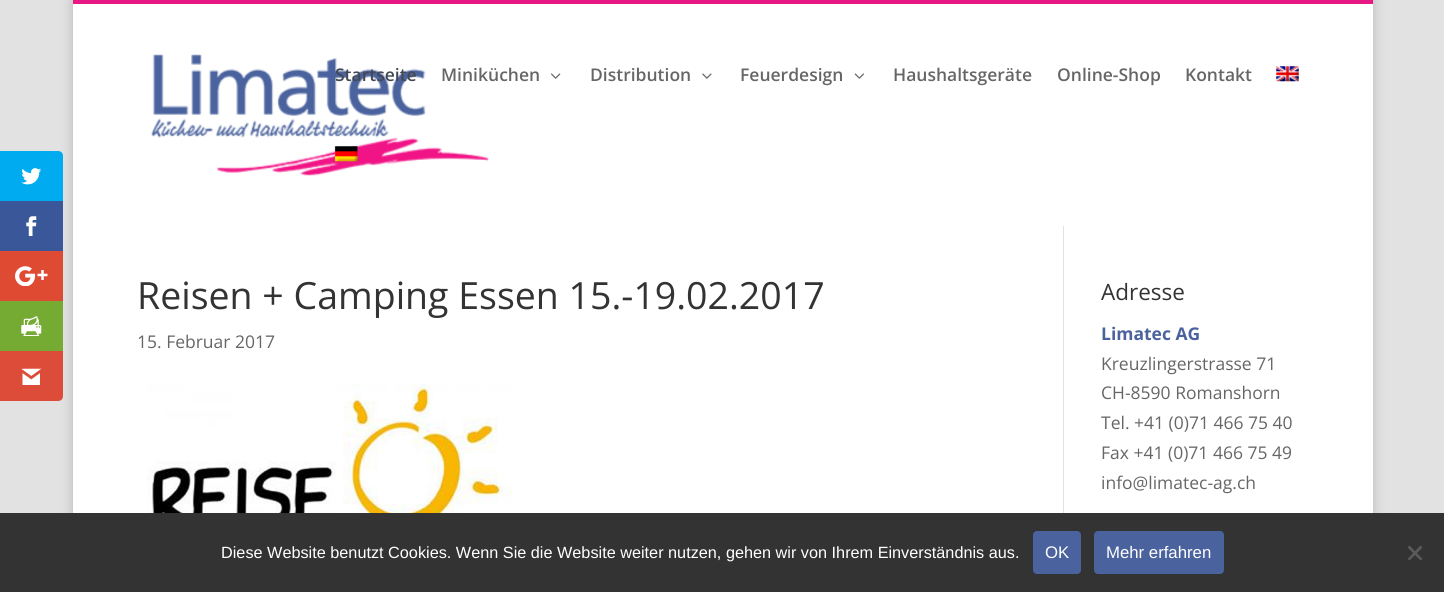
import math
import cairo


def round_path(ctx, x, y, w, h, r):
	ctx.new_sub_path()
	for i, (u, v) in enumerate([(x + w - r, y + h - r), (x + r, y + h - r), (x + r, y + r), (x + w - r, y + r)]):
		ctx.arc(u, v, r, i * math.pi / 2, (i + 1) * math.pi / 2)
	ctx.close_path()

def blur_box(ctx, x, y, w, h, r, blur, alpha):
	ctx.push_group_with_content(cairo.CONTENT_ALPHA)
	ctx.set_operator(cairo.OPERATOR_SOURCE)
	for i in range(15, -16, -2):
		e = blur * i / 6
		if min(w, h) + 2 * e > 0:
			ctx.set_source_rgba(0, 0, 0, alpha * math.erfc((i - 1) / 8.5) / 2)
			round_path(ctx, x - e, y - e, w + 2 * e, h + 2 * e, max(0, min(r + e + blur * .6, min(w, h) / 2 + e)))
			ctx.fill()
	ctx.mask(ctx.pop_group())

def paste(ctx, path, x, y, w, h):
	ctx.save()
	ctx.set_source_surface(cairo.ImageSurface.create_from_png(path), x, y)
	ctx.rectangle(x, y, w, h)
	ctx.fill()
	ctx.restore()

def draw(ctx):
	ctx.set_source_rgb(0.886, 0.886, 0.886)
	ctx.paint()
	ctx.set_source_rgb(0, 0, 0)
	blur_box(ctx, 73, 0, 1300, 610, 0, 6, 0.2)
	ctx.set_source_rgb(0, 0.671, 0.941)
	ctx.new_path()
	ctx.move_to(0, 151)
	ctx.line_to(58, 151)
	ctx.curve_to(61, 151, 63, 153, 63, 156)
	ctx.line_to(63, 201)
	ctx.line_to(0, 201)
	ctx.close_path()
	ctx.fill()
	paste(ctx, 'media/1.png', 21, 168, 21, 17)
	ctx.set_source_rgb(0.227, 0.341, 0.604)
	ctx.rectangle(0, 201, 63, 50)
	ctx.fill()
	paste(ctx, 'media/2.png', 26, 216, 11, 20)
	ctx.set_source_rgb(0.875, 0.29, 0.196)
	ctx.rectangle(0, 251, 63, 50)
	ctx.fill()
	paste(ctx, 'media/3.png', 15, 266, 33, 20)
	ctx.set_source_rgb(0.459, 0.667, 0.2)
	ctx.rectangle(0, 301, 63, 50)
	ctx.fill()
	paste(ctx, 'media/4.png', 21, 316, 21, 20)
	ctx.set_source_rgb(0.867, 0.294, 0.224)
	ctx.new_path()
	ctx.move_to(0, 351)
	ctx.line_to(63, 351)
	ctx.line_to(63, 396)
	ctx.curve_to(63, 399, 61, 401, 58, 401)
	ctx.line_to(0, 401)
	ctx.close_path()
	ctx.fill()
	paste(ctx, 'media/5.png', 21, 368, 21, 17)
	ctx.set_source_rgb(0.906, 0.09, 0.518)
	ctx.rectangle(73, 0, 1300, 4)
	ctx.fill()
	ctx.set_source_rgb(1, 1, 1)
	ctx.rectangle(73, 4, 1300, 509)
	ctx.fill()
	paste(ctx, 'media/6.png', 151, 54, 338, 122)
	ctx.select_font_face('Open Sans SemiBold')
	ctx.set_font_size(17.5)
	ctx.set_source_rgb(0.263, 0.282, 0.325)
	ctx.move_to(335, 81)
	ctx.show_text('Startseite')
	ctx.set_source_rgb(0.4, 0.4, 0.4)
	ctx.move_to(441, 81)
	ctx.show_text('Miniküchen')
	paste(ctx, 'media/7.png', 551, 73, 10, 6)
	ctx.move_to(590, 81)
	ctx.show_text('Distribution')
	paste(ctx, 'media/8.png', 702, 73, 10, 6)
	ctx.move_to(740, 81)
	ctx.show_text('Feuerdesign')
	paste(ctx, 'media/9.png', 854, 73, 10, 6)
	for x, y, s in [
		(893, 81, 'Haushaltsgeräte'),
		(1057, 81, 'Online-Shop'),
		(1185, 81, 'Kontakt'),
	]:
		ctx.move_to(x, y)
		ctx.show_text(s)
	paste(ctx, 'media/10.png', 1276, 66, 23, 16)
	paste(ctx, 'media/11.png', 334, 146, 24, 16)
	ctx.set_source_rgb(0.886, 0.886, 0.886)
	ctx.rectangle(1063, 226, 1, 287)
	ctx.fill()
	ctx.select_font_face('Open Sans')
	ctx.set_font_size(37.5)
	ctx.set_source_rgb(0.2, 0.2, 0.2)
	ctx.move_to(137, 309)
	ctx.show_text('Reisen + Camping Essen 15.-19.02.2017')
	ctx.set_font_size(17.5)
	ctx.set_source_rgb(0.4, 0.4, 0.4)
	ctx.move_to(137, 348)
	ctx.show_text('15. Februar 2017')
	paste(ctx, 'media/12.png', 147, 384, 365, 129)
	ctx.set_font_size(22.5)
	ctx.set_source_rgb(0.2, 0.2, 0.2)
	ctx.move_to(1101, 300)
	ctx.show_text('Adresse')
	ctx.select_font_face('Open Sans', cairo.FONT_SLANT_NORMAL, cairo.FONT_WEIGHT_BOLD)
	ctx.set_font_size(17.5)
	ctx.set_source_rgb(0.29, 0.384, 0.616)
	ctx.move_to(1101, 340)
	ctx.show_text('Limatec AG')
	ctx.select_font_face('Open Sans')
	ctx.set_source_rgb(0.4, 0.4, 0.4)
	for x, y, s in [
		(1101, 370, 'Kreuzlingerstrasse 71'),
		(1101, 399, 'CH-8590 Romanshorn'),
		(1101, 429, 'Tel. +41 (0)71 466 75 40'),
		(1101, 459, 'Fax +41 (0)71 466 75 49'),
		(1101, 489, 'info@limatec-ag.ch'),
	]:
		ctx.move_to(x, y)
		ctx.show_text(s)
	ctx.set_source_rgb(0.2, 0.2, 0.2)
	ctx.rectangle(0, 513, 1444, 79)
	ctx.fill()
	ctx.select_font_face('Liberation Sans')
	ctx.set_font_size(16.25)
	ctx.set_source_rgb(1, 1, 1)
	ctx.move_to(221, 558)
	ctx.show_text('Diese Website benutzt Cookies. Wenn Sie die Website weiter nutzen, gehen wir von Ihrem Einverständnis aus.')
	ctx.set_source_rgb(0.29, 0.384, 0.616)
	round_path(ctx, 1033, 531, 48, 43, 4)
	ctx.fill()
	ctx.set_font_size(16.75)
	ctx.set_source_rgb(1, 1, 1)
	ctx.move_to(1045, 558)
	ctx.show_text('OK')
	ctx.set_source_rgb(0.29, 0.384, 0.616)
	round_path(ctx, 1094, 531, 130, 43, 4)
	ctx.fill()
	ctx.set_source_rgb(1, 1, 1)
	ctx.move_to(1106, 558)
	ctx.show_text('Mehr erfahren')
	ctx.set_source_rgb(0.353, 0.353, 0.353)
	ctx.new_path()
	ctx.move_to(1420.5, 545.5)
	ctx.line_to(1422.5, 547.5)
	ctx.line_to(1409.5, 560.5)
	ctx.line_to(1407.5, 559)
	ctx.close_path()
	ctx.fill()
	ctx.new_path()
	ctx.move_to(1407.5, 547.5)
	ctx.line_to(1409.5, 545.5)
	ctx.line_to(1422.5, 559)
	ctx.line_to(1420.5, 560.5)
	ctx.close_path()
	ctx.fill()


surface = cairo.ImageSurface(cairo.FORMAT_RGB24, 1444, 592)
ctx = cairo.Context(surface)
options = cairo.FontOptions()
options.set_hint_metrics(cairo.HINT_METRICS_OFF)
options.set_hint_style(cairo.HINT_STYLE_NONE)
ctx.set_font_options(options)
ctx.set_miter_limit(4)
draw(ctx)
surface.write_to_png('image.png')
